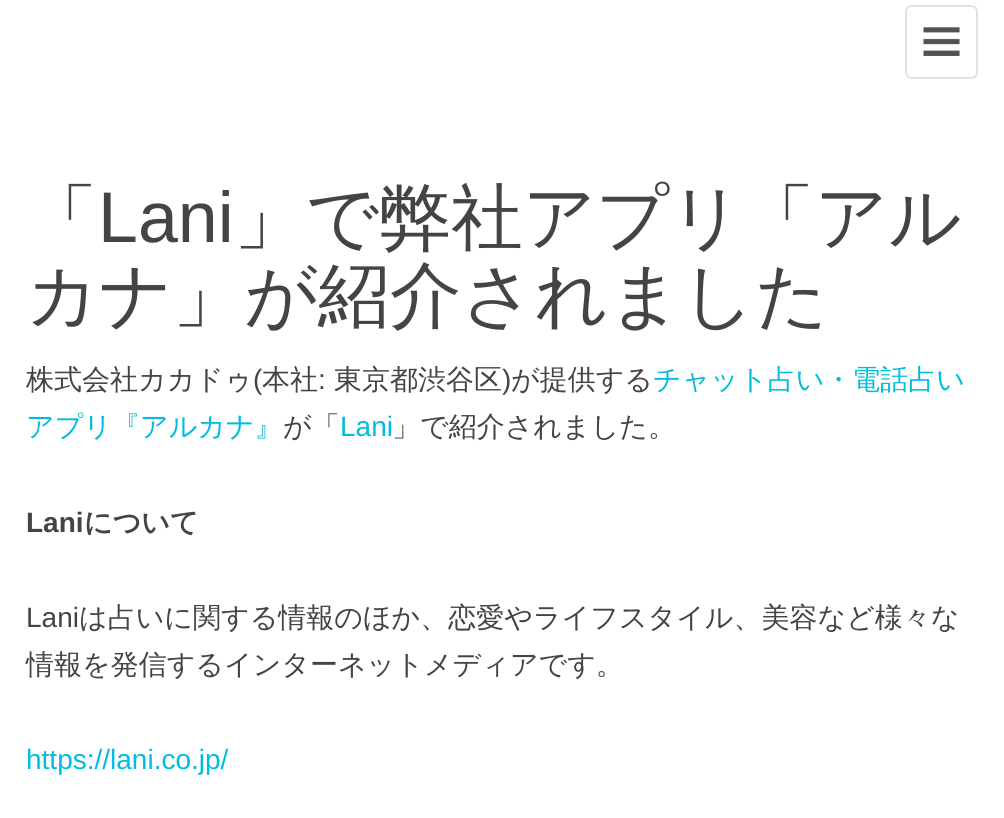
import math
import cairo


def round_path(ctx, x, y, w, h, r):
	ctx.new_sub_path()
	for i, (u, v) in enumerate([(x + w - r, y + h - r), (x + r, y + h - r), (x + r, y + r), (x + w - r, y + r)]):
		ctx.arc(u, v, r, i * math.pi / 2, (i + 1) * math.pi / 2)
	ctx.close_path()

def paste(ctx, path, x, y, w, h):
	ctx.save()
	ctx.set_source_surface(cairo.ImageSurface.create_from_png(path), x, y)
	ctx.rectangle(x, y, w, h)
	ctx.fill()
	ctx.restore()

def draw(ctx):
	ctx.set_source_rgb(1, 1, 1)
	ctx.paint()
	round_path(ctx, 906, 6, 71, 72, 6)
	ctx.set_source_rgb(0.886, 0.886, 0.886)
	ctx.stroke()
	paste(ctx, 'media/1.png', 923, 27, 37, 29)
	ctx.select_font_face('WenQuanYi Zen Hei Medium')
	ctx.set_font_size(71.75)
	ctx.set_source_rgb(0.275, 0.263, 0.259)
	ctx.move_to(26, 242)
	ctx.show_text('「')
	ctx.select_font_face('Liberation Sans')
	ctx.move_to(98, 242)
	ctx.show_text('Lani')
	ctx.select_font_face('WenQuanYi Zen Hei Medium')
	ctx.move_to(234, 242)
	ctx.show_text('」で弊社アプリ「アル')
	ctx.move_to(26, 320)
	ctx.show_text('カナ」が紹介されました')
	ctx.set_font_size(28)
	ctx.move_to(26, 389)
	ctx.show_text('株式会社カカドゥ')
	ctx.select_font_face('Liberation Sans')
	ctx.move_to(253, 389)
	ctx.show_text('(')
	ctx.select_font_face('WenQuanYi Zen Hei Medium')
	ctx.move_to(262, 389)
	ctx.show_text('本社')
	ctx.select_font_face('Liberation Sans')
	ctx.move_to(318, 389)
	ctx.show_text(':')
	ctx.select_font_face('WenQuanYi Zen Hei Medium')
	ctx.move_to(334, 389)
	ctx.show_text('東京都渋谷区')
	ctx.select_font_face('Liberation Sans')
	ctx.move_to(502, 389)
	ctx.show_text(')')
	ctx.select_font_face('WenQuanYi Zen Hei Medium')
	ctx.move_to(511, 389)
	ctx.show_text('が提供する')
	ctx.set_source_rgb(0, 0.737, 0.871)
	ctx.move_to(653, 389)
	ctx.show_text('チャット占い・電話占い')
	ctx.move_to(26, 436)
	ctx.show_text('アプリ『アルカナ』')
	ctx.set_source_rgb(0.275, 0.263, 0.259)
	ctx.move_to(283, 436)
	ctx.show_text('が「')
	ctx.select_font_face('Liberation Sans')
	ctx.set_source_rgb(0, 0.737, 0.871)
	ctx.move_to(340, 436)
	ctx.show_text('Lani')
	ctx.select_font_face('WenQuanYi Zen Hei Medium')
	ctx.set_source_rgb(0.275, 0.263, 0.259)
	ctx.move_to(392, 436)
	ctx.show_text('」で紹介されました。')
	ctx.select_font_face('Liberation Sans', cairo.FONT_SLANT_NORMAL, cairo.FONT_WEIGHT_BOLD)
	ctx.move_to(26, 532)
	ctx.show_text('Lani')
	ctx.select_font_face('WenQuanYi Zen Hei', cairo.FONT_SLANT_NORMAL, cairo.FONT_WEIGHT_BOLD)
	ctx.move_to(84, 532)
	ctx.show_text('について')
	ctx.select_font_face('Liberation Sans')
	ctx.move_to(26, 627)
	ctx.show_text('Lani')
	ctx.select_font_face('WenQuanYi Zen Hei Medium')
	ctx.move_to(79, 627)
	ctx.show_text('は占いに関する情報のほか、恋愛やライフスタイル、美容など様々な')
	ctx.move_to(26, 674)
	ctx.show_text('情報を発信するインターネットメディアです。')
	ctx.select_font_face('Liberation Sans')
	ctx.set_source_rgb(0, 0.737, 0.871)
	ctx.move_to(26, 769)
	ctx.show_text('https://lani.co.jp/')


surface = cairo.ImageSurface(cairo.FORMAT_RGB24, 1004, 818)
ctx = cairo.Context(surface)
options = cairo.FontOptions()
options.set_hint_metrics(cairo.HINT_METRICS_OFF)
options.set_hint_style(cairo.HINT_STYLE_NONE)
ctx.set_font_options(options)
ctx.set_miter_limit(4)
draw(ctx)
surface.write_to_png('image.png')
